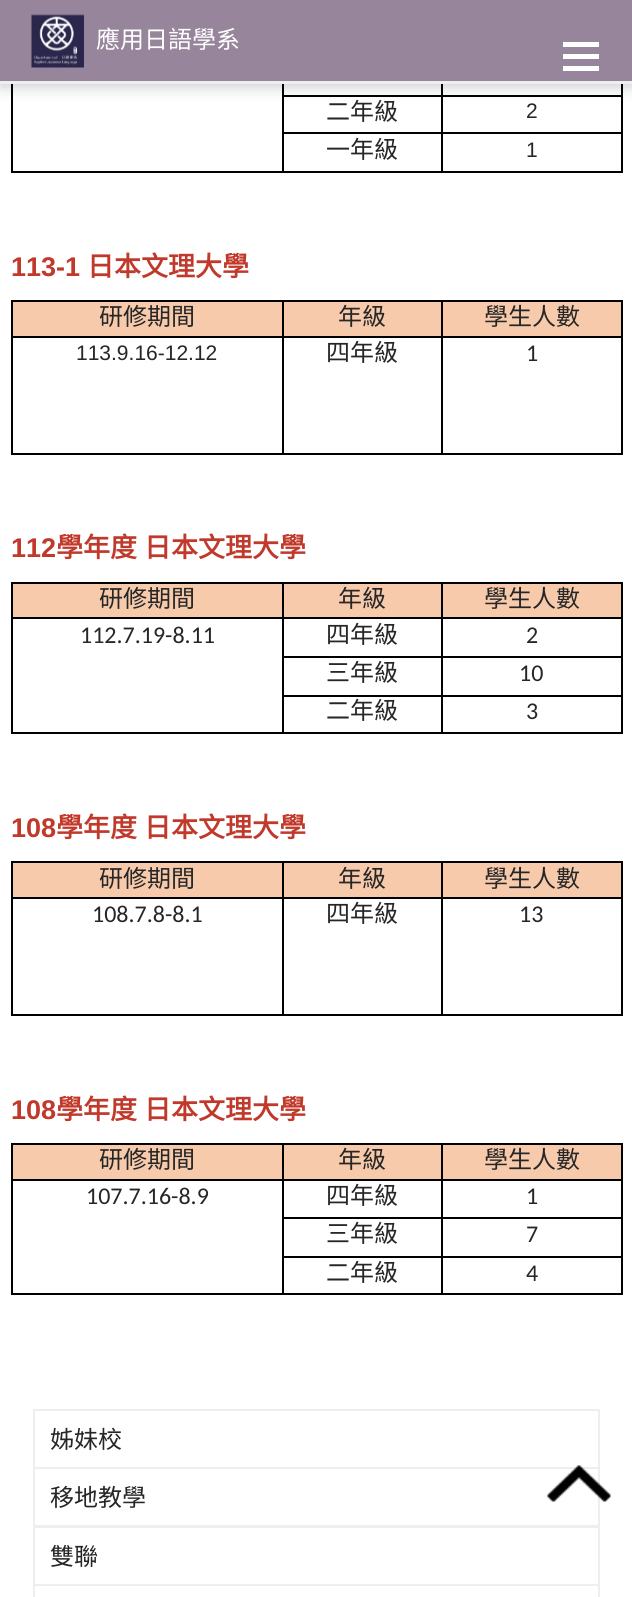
import math
import cairo


def write_spaced(ctx, x, y, s, letter, word):
	ctx.move_to(x, y)
	for ch in s:
		ctx.show_text(ch)
		ctx.rel_move_to(letter + word * (ch == ' '), 0)

def round_path(ctx, x, y, w, h, r):
	ctx.new_sub_path()
	for i, (u, v) in enumerate([(x + w - r, y + h - r), (x + r, y + h - r), (x + r, y + r), (x + w - r, y + r)]):
		ctx.arc(u, v, r, i * math.pi / 2, (i + 1) * math.pi / 2)
	ctx.close_path()

def blur_box(ctx, x, y, w, h, r, blur, alpha):
	ctx.push_group_with_content(cairo.CONTENT_ALPHA)
	ctx.set_operator(cairo.OPERATOR_SOURCE)
	for i in range(15, -16, -2):
		e = blur * i / 6
		if min(w, h) + 2 * e > 0:
			ctx.set_source_rgba(0, 0, 0, alpha * math.erfc((i - 1) / 8.5) / 2)
			round_path(ctx, x - e, y - e, w + 2 * e, h + 2 * e, max(0, min(r + e + blur * .6, min(w, h) / 2 + e)))
			ctx.fill()
	ctx.mask(ctx.pop_group())

def paste(ctx, path, x, y, w, h):
	ctx.save()
	ctx.set_source_surface(cairo.ImageSurface.create_from_png(path), x, y)
	ctx.rectangle(x, y, w, h)
	ctx.fill()
	ctx.restore()

def draw(ctx):
	ctx.set_source_rgb(1, 1, 1)
	ctx.paint()
	ctx.set_source_rgb(0, 0, 0)
	ctx.rectangle(621, 84, 2, 89)
	ctx.rectangle(441, 171, 182, 2)
	ctx.rectangle(441, 132, 2, 41)
	ctx.rectangle(441, 132, 182, 2)
	ctx.rectangle(441, 95, 2, 39)
	ctx.rectangle(441, 95, 182, 2)
	ctx.rectangle(441, 84, 2, 12)
	ctx.rectangle(282, 95, 161, 2)
	ctx.rectangle(282, 132, 161, 2)
	ctx.rectangle(282, 171, 161, 2)
	ctx.rectangle(282, 84, 2, 89)
	ctx.rectangle(11, 171, 273, 2)
	ctx.rectangle(11, 84, 2, 89)
	ctx.fill()
	ctx.set_source_rgb(0, 0, 0)
	blur_box(ctx, 0, 3, 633, 84, 0, 7.5, 0.2)
	ctx.set_source_rgb(0.592, 0.522, 0.608)
	ctx.rectangle(0, 0, 632, 81)
	ctx.fill()
	paste(ctx, 'media/1.png', 31, 14, 53, 54)
	ctx.select_font_face('Noto Sans CJK TC')
	ctx.set_font_size(24)
	ctx.set_source_rgb(1, 1, 1)
	ctx.move_to(96, 48)
	ctx.show_text('應用日語學系')
	ctx.set_source_rgb(0.933, 0.933, 0.933)
	ctx.rectangle(0, 81, 632, 3)
	ctx.fill()
	ctx.set_source_rgb(1, 1, 1)
	ctx.rectangle(563, 54, 36, 5)
	ctx.rectangle(563, 42, 36, 5)
	ctx.rectangle(563, 66, 36, 5)
	ctx.fill()
	ctx.set_source_rgb(0.149, 0.149, 0.149)
	ctx.move_to(326, 120)
	ctx.show_text('二年級')
	ctx.select_font_face('Liberation Sans')
	ctx.set_font_size(21)
	ctx.move_to(526, 118)
	ctx.show_text('2')
	ctx.select_font_face('Noto Sans CJK TC')
	ctx.set_font_size(24)
	ctx.move_to(326, 158)
	ctx.show_text('一年級')
	ctx.select_font_face('Liberation Sans')
	ctx.set_font_size(21)
	ctx.move_to(526, 157)
	ctx.show_text('1')
	ctx.select_font_face('Liberation Sans', cairo.FONT_SLANT_NORMAL, cairo.FONT_WEIGHT_BOLD)
	ctx.set_font_size(27)
	ctx.set_source_rgb(0.753, 0.224, 0.169)
	ctx.move_to(11, 276)
	ctx.show_text('113-1')
	ctx.select_font_face('Noto Sans CJK TC', cairo.FONT_SLANT_NORMAL, cairo.FONT_WEIGHT_BOLD)
	ctx.move_to(87, 276)
	ctx.show_text('日本文理大學')
	ctx.set_source_rgb(0.969, 0.792, 0.675)
	ctx.rectangle(13, 302, 269, 34)
	ctx.fill()
	ctx.set_source_rgb(0, 0, 0)
	ctx.rectangle(11, 300, 612, 2)
	ctx.rectangle(621, 336, 2, 119)
	ctx.rectangle(621, 300, 2, 38)
	ctx.rectangle(441, 453, 182, 2)
	ctx.rectangle(441, 336, 2, 119)
	ctx.rectangle(441, 336, 182, 2)
	ctx.rectangle(441, 300, 2, 38)
	ctx.rectangle(282, 453, 161, 2)
	ctx.rectangle(282, 336, 2, 119)
	ctx.rectangle(282, 336, 161, 2)
	ctx.rectangle(282, 300, 2, 38)
	ctx.rectangle(11, 453, 273, 2)
	ctx.rectangle(11, 336, 2, 119)
	ctx.rectangle(11, 336, 273, 2)
	ctx.rectangle(11, 300, 2, 38)
	ctx.fill()
	ctx.select_font_face('Noto Sans CJK TC')
	ctx.set_font_size(24)
	ctx.set_source_rgb(0.149, 0.149, 0.149)
	ctx.move_to(99, 325)
	ctx.show_text('研修期間')
	ctx.set_source_rgb(0.969, 0.792, 0.675)
	ctx.rectangle(284, 302, 157, 34)
	ctx.fill()
	ctx.set_source_rgb(0.149, 0.149, 0.149)
	ctx.move_to(338, 325)
	ctx.show_text('年級')
	ctx.set_source_rgb(0.969, 0.792, 0.675)
	ctx.rectangle(443, 302, 178, 34)
	ctx.fill()
	ctx.set_source_rgb(0.149, 0.149, 0.149)
	ctx.move_to(484, 325)
	ctx.show_text('學生人數')
	ctx.select_font_face('Liberation Sans')
	ctx.set_font_size(21)
	ctx.move_to(76, 360)
	ctx.show_text('113.9.16-12.12')
	ctx.select_font_face('Noto Sans CJK TC')
	ctx.set_font_size(24)
	ctx.move_to(326, 361)
	ctx.show_text('四年級')
	ctx.select_font_face('Carlito')
	ctx.move_to(526, 361)
	ctx.show_text('1')
	ctx.select_font_face('Liberation Sans', cairo.FONT_SLANT_NORMAL, cairo.FONT_WEIGHT_BOLD)
	ctx.set_font_size(27)
	ctx.set_source_rgb(0.753, 0.224, 0.169)
	ctx.move_to(11, 557)
	ctx.show_text('112')
	ctx.select_font_face('Noto Sans CJK TC', cairo.FONT_SLANT_NORMAL, cairo.FONT_WEIGHT_BOLD)
	write_spaced(ctx, 56, 557, '學年度 日本文理大學', 0, 1)
	ctx.set_source_rgb(0.969, 0.792, 0.675)
	ctx.rectangle(13, 584, 269, 33)
	ctx.fill()
	ctx.set_source_rgb(0, 0, 0)
	ctx.rectangle(11, 582, 612, 2)
	ctx.rectangle(621, 617, 2, 117)
	ctx.rectangle(621, 582, 2, 36)
	ctx.rectangle(441, 732, 182, 2)
	ctx.rectangle(441, 695, 2, 39)
	ctx.rectangle(441, 695, 182, 2)
	ctx.rectangle(441, 656, 2, 40)
	ctx.rectangle(441, 656, 182, 2)
	ctx.rectangle(441, 617, 2, 40)
	ctx.rectangle(441, 617, 182, 2)
	ctx.rectangle(441, 582, 2, 36)
	ctx.rectangle(282, 656, 161, 2)
	ctx.rectangle(282, 695, 161, 2)
	ctx.rectangle(282, 732, 161, 2)
	ctx.rectangle(282, 617, 2, 117)
	ctx.rectangle(282, 617, 161, 2)
	ctx.rectangle(282, 582, 2, 36)
	ctx.rectangle(11, 732, 273, 2)
	ctx.rectangle(11, 617, 2, 117)
	ctx.rectangle(11, 617, 273, 2)
	ctx.rectangle(11, 582, 2, 36)
	ctx.fill()
	ctx.select_font_face('Noto Sans CJK TC')
	ctx.set_font_size(24)
	ctx.set_source_rgb(0.149, 0.149, 0.149)
	ctx.move_to(99, 607)
	ctx.show_text('研修期間')
	ctx.set_source_rgb(0.969, 0.792, 0.675)
	ctx.rectangle(284, 584, 157, 33)
	ctx.fill()
	ctx.set_source_rgb(0.149, 0.149, 0.149)
	ctx.move_to(338, 607)
	ctx.show_text('年級')
	ctx.set_source_rgb(0.969, 0.792, 0.675)
	ctx.rectangle(443, 584, 178, 33)
	ctx.fill()
	ctx.set_source_rgb(0.149, 0.149, 0.149)
	ctx.move_to(484, 607)
	ctx.show_text('學生人數')
	ctx.select_font_face('Carlito')
	ctx.move_to(80, 643)
	ctx.show_text('112.7.19-8.11')
	ctx.select_font_face('Noto Sans CJK TC')
	ctx.move_to(326, 643)
	ctx.show_text('四年級')
	ctx.select_font_face('Carlito')
	ctx.move_to(526, 643)
	ctx.show_text('2')
	ctx.select_font_face('Noto Sans CJK TC')
	ctx.move_to(326, 681)
	ctx.show_text('三年級')
	ctx.select_font_face('Carlito')
	ctx.move_to(519, 681)
	ctx.show_text('10')
	ctx.select_font_face('Noto Sans CJK TC')
	ctx.move_to(326, 719)
	ctx.show_text('二年級')
	ctx.select_font_face('Carlito')
	ctx.move_to(526, 719)
	ctx.show_text('3')
	ctx.select_font_face('Liberation Sans', cairo.FONT_SLANT_NORMAL, cairo.FONT_WEIGHT_BOLD)
	ctx.set_font_size(27)
	ctx.set_source_rgb(0.753, 0.224, 0.169)
	ctx.move_to(11, 837)
	ctx.show_text('108')
	ctx.select_font_face('Noto Sans CJK TC', cairo.FONT_SLANT_NORMAL, cairo.FONT_WEIGHT_BOLD)
	write_spaced(ctx, 56, 837, '學年度 日本文理大學', 0, 1)
	ctx.set_source_rgb(0.969, 0.792, 0.675)
	ctx.rectangle(13, 863, 269, 34)
	ctx.fill()
	ctx.set_source_rgb(0, 0, 0)
	ctx.rectangle(11, 861, 612, 2)
	ctx.rectangle(621, 897, 2, 119)
	ctx.rectangle(621, 861, 2, 38)
	ctx.rectangle(441, 1014, 182, 2)
	ctx.rectangle(441, 897, 2, 119)
	ctx.rectangle(441, 897, 182, 2)
	ctx.rectangle(441, 861, 2, 38)
	ctx.rectangle(282, 1014, 161, 2)
	ctx.rectangle(282, 897, 2, 119)
	ctx.rectangle(282, 897, 161, 2)
	ctx.rectangle(282, 861, 2, 38)
	ctx.rectangle(11, 1014, 273, 2)
	ctx.rectangle(11, 897, 2, 119)
	ctx.rectangle(11, 897, 273, 2)
	ctx.rectangle(11, 861, 2, 38)
	ctx.fill()
	ctx.select_font_face('Noto Sans CJK TC')
	ctx.set_font_size(24)
	ctx.set_source_rgb(0.149, 0.149, 0.149)
	ctx.move_to(99, 887)
	ctx.show_text('研修期間')
	ctx.set_source_rgb(0.969, 0.792, 0.675)
	ctx.rectangle(284, 863, 157, 34)
	ctx.fill()
	ctx.set_source_rgb(0.149, 0.149, 0.149)
	ctx.move_to(338, 887)
	ctx.show_text('年級')
	ctx.set_source_rgb(0.969, 0.792, 0.675)
	ctx.rectangle(443, 863, 178, 34)
	ctx.fill()
	ctx.set_source_rgb(0.149, 0.149, 0.149)
	ctx.move_to(484, 887)
	ctx.show_text('學生人數')
	ctx.select_font_face('Carlito')
	ctx.move_to(92, 922)
	ctx.show_text('108.7.8-8.1')
	ctx.select_font_face('Noto Sans CJK TC')
	ctx.move_to(326, 922)
	ctx.show_text('四年級')
	ctx.select_font_face('Carlito')
	ctx.move_to(519, 922)
	ctx.show_text('13')
	ctx.select_font_face('Liberation Sans', cairo.FONT_SLANT_NORMAL, cairo.FONT_WEIGHT_BOLD)
	ctx.set_font_size(27)
	ctx.set_source_rgb(0.753, 0.224, 0.169)
	ctx.move_to(11, 1119)
	ctx.show_text('108')
	ctx.select_font_face('Noto Sans CJK TC', cairo.FONT_SLANT_NORMAL, cairo.FONT_WEIGHT_BOLD)
	write_spaced(ctx, 56, 1119, '學年度 日本文理大學', 0, 1)
	ctx.set_source_rgb(0.969, 0.792, 0.675)
	ctx.rectangle(13, 1145, 269, 34)
	ctx.fill()
	ctx.set_source_rgb(0, 0, 0)
	ctx.rectangle(11, 1143, 612, 2)
	ctx.rectangle(621, 1179, 2, 116)
	ctx.rectangle(621, 1143, 2, 38)
	ctx.rectangle(441, 1293, 182, 2)
	ctx.rectangle(441, 1256, 2, 39)
	ctx.rectangle(441, 1256, 182, 2)
	ctx.rectangle(441, 1217, 2, 40)
	ctx.rectangle(441, 1217, 182, 2)
	ctx.rectangle(441, 1179, 2, 39)
	ctx.rectangle(441, 1179, 182, 2)
	ctx.rectangle(441, 1143, 2, 38)
	ctx.rectangle(282, 1217, 161, 2)
	ctx.rectangle(282, 1256, 161, 2)
	ctx.rectangle(282, 1293, 161, 2)
	ctx.rectangle(282, 1179, 2, 116)
	ctx.rectangle(282, 1179, 161, 2)
	ctx.rectangle(282, 1143, 2, 38)
	ctx.rectangle(11, 1293, 273, 2)
	ctx.rectangle(11, 1179, 2, 116)
	ctx.rectangle(11, 1179, 273, 2)
	ctx.rectangle(11, 1143, 2, 38)
	ctx.fill()
	ctx.select_font_face('Noto Sans CJK TC')
	ctx.set_font_size(24)
	ctx.set_source_rgb(0.149, 0.149, 0.149)
	ctx.move_to(99, 1168)
	ctx.show_text('研修期間')
	ctx.set_source_rgb(0.969, 0.792, 0.675)
	ctx.rectangle(284, 1145, 157, 34)
	ctx.fill()
	ctx.set_source_rgb(0.149, 0.149, 0.149)
	ctx.move_to(338, 1168)
	ctx.show_text('年級')
	ctx.set_source_rgb(0.969, 0.792, 0.675)
	ctx.rectangle(443, 1145, 178, 34)
	ctx.fill()
	ctx.set_source_rgb(0.149, 0.149, 0.149)
	ctx.move_to(484, 1168)
	ctx.show_text('學生人數')
	ctx.select_font_face('Carlito')
	ctx.move_to(86, 1204)
	ctx.show_text('107.7.16-8.9')
	ctx.select_font_face('Noto Sans CJK TC')
	ctx.move_to(326, 1204)
	ctx.show_text('四年級')
	ctx.select_font_face('Carlito')
	ctx.move_to(526, 1204)
	ctx.show_text('1')
	ctx.select_font_face('Noto Sans CJK TC')
	ctx.move_to(326, 1242)
	ctx.show_text('三年級')
	ctx.select_font_face('Carlito')
	ctx.move_to(526, 1242)
	ctx.show_text('7')
	ctx.select_font_face('Noto Sans CJK TC')
	ctx.move_to(326, 1281)
	ctx.show_text('二年級')
	ctx.select_font_face('Carlito')
	ctx.move_to(526, 1281)
	ctx.show_text('4')
	ctx.rectangle(34, 1410, 565, 58)
	ctx.set_source_rgb(0.933, 0.933, 0.933)
	ctx.stroke()
	ctx.select_font_face('Noto Sans CJK TC')
	ctx.set_source_rgb(0.149, 0.149, 0.149)
	ctx.move_to(50, 1448)
	ctx.show_text('姊妹校')
	ctx.rectangle(34, 1468, 565, 58)
	ctx.set_source_rgb(0.933, 0.933, 0.933)
	ctx.stroke()
	ctx.set_source_rgb(0.149, 0.149, 0.149)
	ctx.move_to(50, 1506)
	ctx.show_text('移地教學')
	ctx.rectangle(34, 1527, 565, 58)
	ctx.set_source_rgb(0.933, 0.933, 0.933)
	ctx.stroke()
	ctx.set_source_rgb(0.149, 0.149, 0.149)
	ctx.move_to(50, 1565)
	ctx.show_text('雙聯')
	ctx.rectangle(34, 1585, 565, 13)
	ctx.set_source_rgb(0.933, 0.933, 0.933)
	ctx.stroke()
	paste(ctx, 'media/2.png', 547, 1465, 64, 37)


surface = cairo.ImageSurface(cairo.FORMAT_RGB24, 632, 1597)
ctx = cairo.Context(surface)
options = cairo.FontOptions()
options.set_hint_metrics(cairo.HINT_METRICS_OFF)
options.set_hint_style(cairo.HINT_STYLE_NONE)
ctx.set_font_options(options)
ctx.set_miter_limit(4)
draw(ctx)
surface.write_to_png('image.png')
